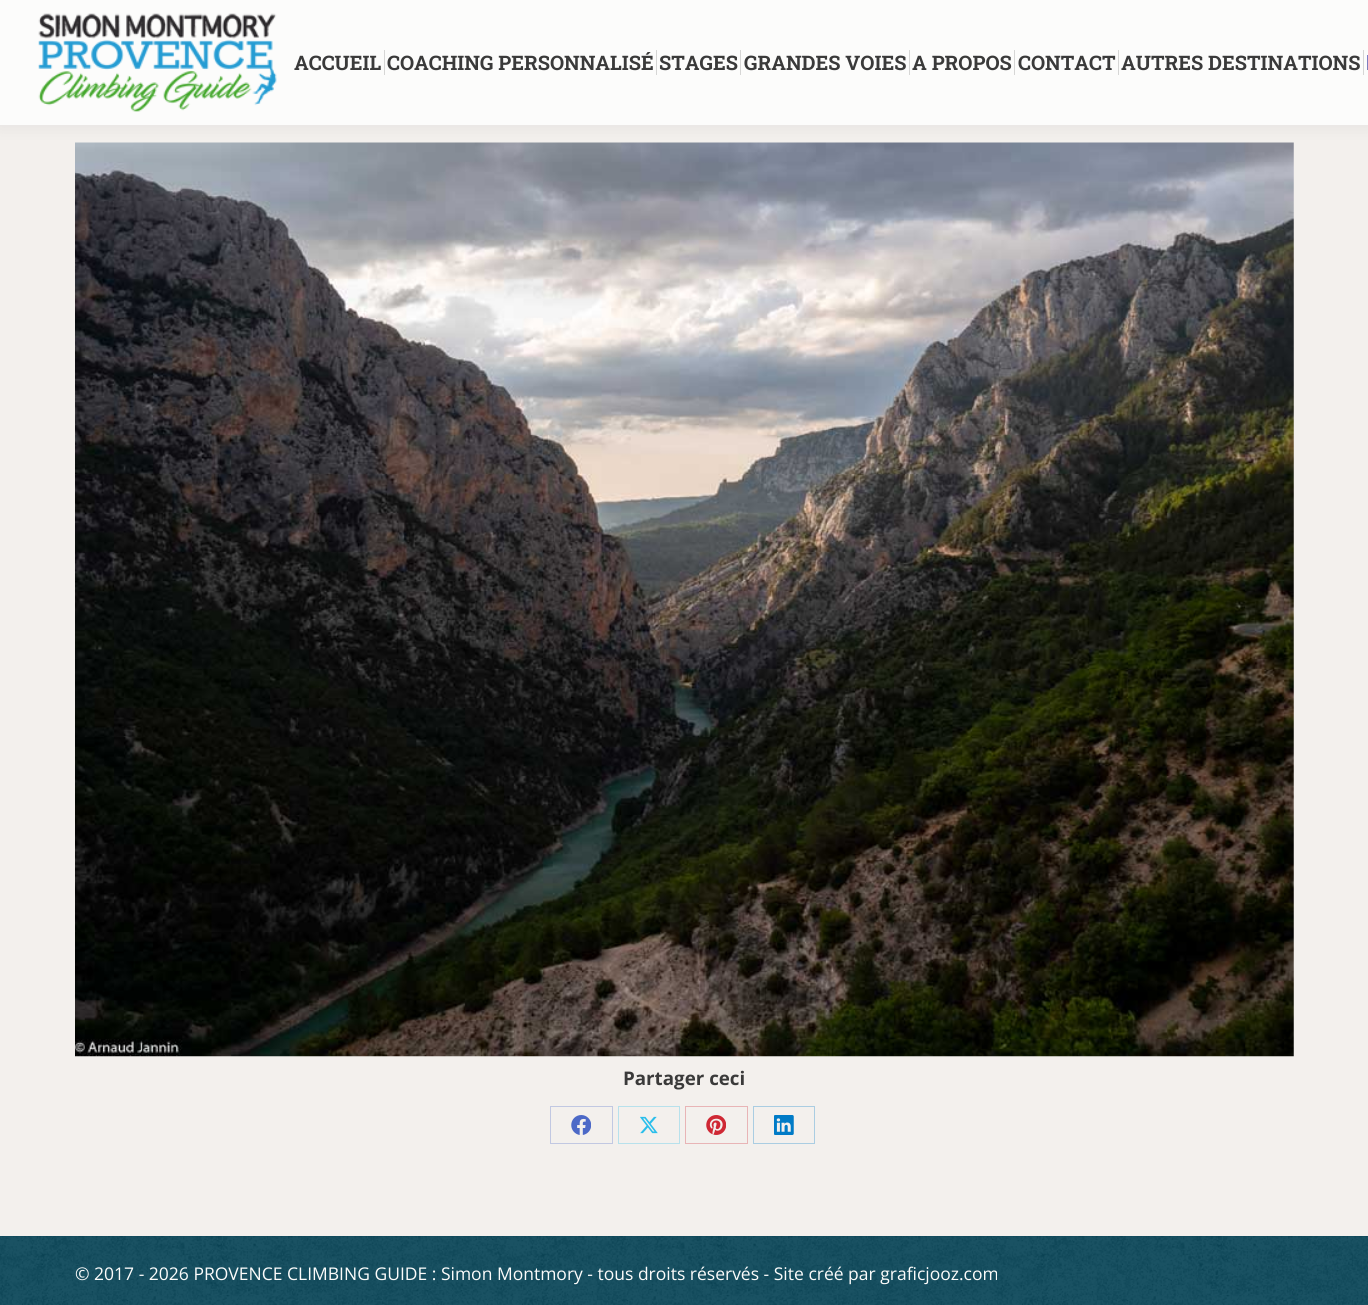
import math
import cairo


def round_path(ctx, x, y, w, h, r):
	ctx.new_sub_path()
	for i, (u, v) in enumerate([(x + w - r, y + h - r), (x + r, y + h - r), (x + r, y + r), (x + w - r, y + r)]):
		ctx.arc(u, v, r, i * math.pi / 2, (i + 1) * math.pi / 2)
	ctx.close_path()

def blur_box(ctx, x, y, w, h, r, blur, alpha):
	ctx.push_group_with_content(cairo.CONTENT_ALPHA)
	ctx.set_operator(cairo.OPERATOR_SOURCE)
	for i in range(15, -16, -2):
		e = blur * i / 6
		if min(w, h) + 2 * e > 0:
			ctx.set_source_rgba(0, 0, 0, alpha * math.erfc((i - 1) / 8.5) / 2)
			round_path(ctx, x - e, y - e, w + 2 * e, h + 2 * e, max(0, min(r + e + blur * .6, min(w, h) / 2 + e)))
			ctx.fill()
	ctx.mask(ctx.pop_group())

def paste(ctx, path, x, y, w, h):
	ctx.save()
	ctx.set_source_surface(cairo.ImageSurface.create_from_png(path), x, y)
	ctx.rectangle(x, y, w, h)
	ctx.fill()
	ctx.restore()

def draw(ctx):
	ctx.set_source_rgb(0.953, 0.941, 0.929)
	ctx.paint()
	paste(ctx, 'media/3.png', 75, 142, 1219, 915)
	ctx.set_source_rgb(0, 0, 0)
	blur_box(ctx, -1, -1, 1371, 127, 0, 9.5, 0.07)
	ctx.set_source_rgb(0.988, 0.988, 0.984)
	ctx.rectangle(0, 0, 1368, 125)
	ctx.fill()
	paste(ctx, 'media/1.png', 38, 13, 239, 99)
	ctx.select_font_face('Roboto Slab', cairo.FONT_SLANT_NORMAL, cairo.FONT_WEIGHT_BOLD)
	ctx.set_font_size(20)
	ctx.set_source_rgb(0.227, 0.227, 0.227)
	ctx.move_to(294, 70)
	ctx.show_text('ACCUEIL')
	ctx.set_source_rgb(0.839, 0.839, 0.835)
	ctx.rectangle(384, 50, 1, 25)
	ctx.fill()
	ctx.set_source_rgb(0.227, 0.227, 0.227)
	ctx.move_to(387, 70)
	ctx.show_text('COACHING PERSONNALISÉ')
	ctx.set_source_rgb(0.839, 0.839, 0.835)
	ctx.rectangle(656, 50, 1, 25)
	ctx.fill()
	ctx.set_source_rgb(0.227, 0.227, 0.227)
	ctx.move_to(659, 70)
	ctx.show_text('STAGES')
	ctx.set_source_rgb(0.839, 0.839, 0.835)
	ctx.rectangle(740, 50, 1, 25)
	ctx.fill()
	ctx.set_source_rgb(0.227, 0.227, 0.227)
	ctx.move_to(744, 70)
	ctx.show_text('GRANDES VOIES')
	ctx.set_source_rgb(0.839, 0.839, 0.835)
	ctx.rectangle(909, 50, 1, 25)
	ctx.fill()
	ctx.set_source_rgb(0.227, 0.227, 0.227)
	ctx.move_to(912, 70)
	ctx.show_text('A PROPOS')
	ctx.set_source_rgb(0.839, 0.839, 0.835)
	ctx.rectangle(1014, 50, 1, 25)
	ctx.fill()
	ctx.set_source_rgb(0.227, 0.227, 0.227)
	ctx.move_to(1018, 70)
	ctx.show_text('CONTACT')
	ctx.set_source_rgb(0.839, 0.839, 0.835)
	ctx.rectangle(1118, 50, 1, 25)
	ctx.fill()
	ctx.set_source_rgb(0.227, 0.227, 0.227)
	ctx.move_to(1121, 70)
	ctx.show_text('AUTRES DESTINATIONS')
	ctx.set_source_rgb(0.839, 0.839, 0.835)
	ctx.rectangle(1363, 50, 1, 25)
	ctx.fill()
	paste(ctx, 'media/2.png', 1367, 55, 1, 15)
	ctx.select_font_face('Open Sans', cairo.FONT_SLANT_NORMAL, cairo.FONT_WEIGHT_BOLD)
	ctx.set_font_size(18.75)
	ctx.set_source_rgb(0.227, 0.227, 0.227)
	ctx.move_to(623, 1085)
	ctx.show_text('Partager ceci')
	ctx.rectangle(550.5, 1106.5, 62, 37)
	ctx.set_source_rgb(0.757, 0.784, 0.886)
	ctx.set_line_width(1)
	ctx.stroke()
	paste(ctx, 'media/4.png', 571, 1115, 20, 20)
	ctx.rectangle(618.5, 1106.5, 61, 37)
	ctx.set_source_rgb(0.718, 0.882, 0.925)
	ctx.stroke()
	paste(ctx, 'media/5.png', 640, 1116, 18, 18)
	ctx.rectangle(685.5, 1106.5, 62, 37)
	ctx.set_source_rgb(0.91, 0.706, 0.714)
	ctx.stroke()
	paste(ctx, 'media/6.png', 706, 1115, 20, 20)
	ctx.rectangle(753.5, 1106.5, 61, 37)
	ctx.set_source_rgb(0.667, 0.804, 0.886)
	ctx.stroke()
	paste(ctx, 'media/7.png', 774, 1115, 20, 20)
	ctx.set_source_rgb(0, 0.243, 0.318)
	ctx.rectangle(0, 1236, 1368, 69)
	ctx.fill()
	paste(ctx, 'media/8.png', 0, 1236, 1368, 69)
	ctx.select_font_face('Open Sans')
	ctx.set_font_size(17.5)
	ctx.set_source_rgb(0.988, 0.988, 0.984)
	ctx.move_to(75, 1280)
	ctx.show_text('© 2017 - 2026 PROVENCE CLIMBING GUIDE : Simon Montmory - tous droits réservés - Site créé par graficjooz.com')


surface = cairo.ImageSurface(cairo.FORMAT_RGB24, 1368, 1305)
ctx = cairo.Context(surface)
options = cairo.FontOptions()
options.set_hint_metrics(cairo.HINT_METRICS_OFF)
options.set_hint_style(cairo.HINT_STYLE_NONE)
ctx.set_font_options(options)
ctx.set_miter_limit(4)
draw(ctx)
surface.write_to_png('image.png')
